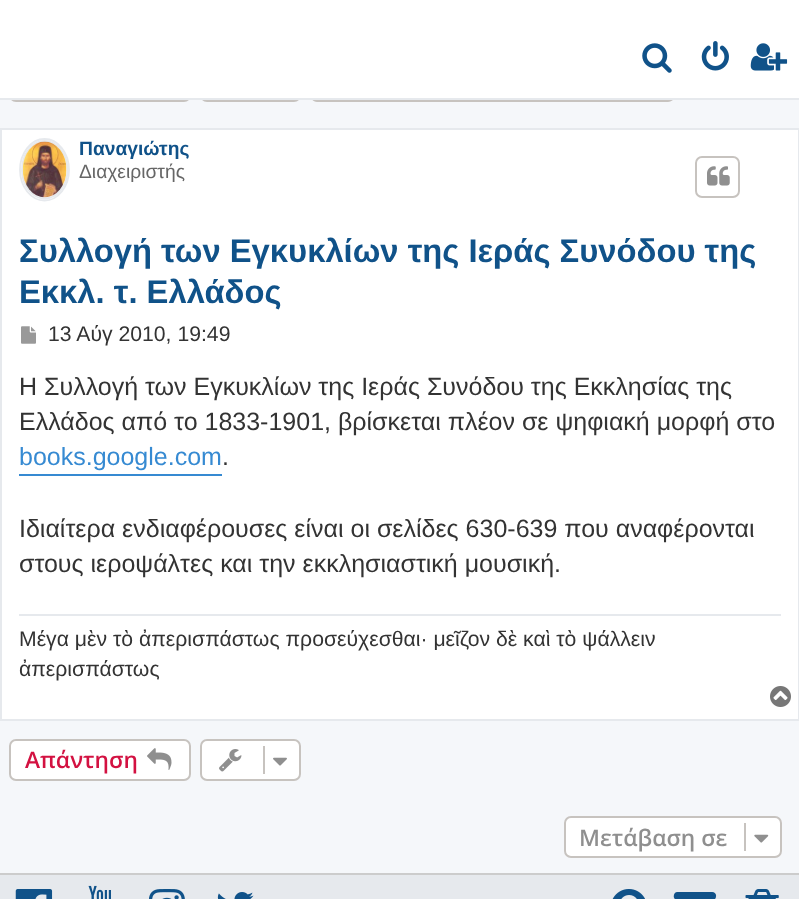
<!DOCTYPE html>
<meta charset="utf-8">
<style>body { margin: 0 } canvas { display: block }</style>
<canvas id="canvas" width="799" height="899"></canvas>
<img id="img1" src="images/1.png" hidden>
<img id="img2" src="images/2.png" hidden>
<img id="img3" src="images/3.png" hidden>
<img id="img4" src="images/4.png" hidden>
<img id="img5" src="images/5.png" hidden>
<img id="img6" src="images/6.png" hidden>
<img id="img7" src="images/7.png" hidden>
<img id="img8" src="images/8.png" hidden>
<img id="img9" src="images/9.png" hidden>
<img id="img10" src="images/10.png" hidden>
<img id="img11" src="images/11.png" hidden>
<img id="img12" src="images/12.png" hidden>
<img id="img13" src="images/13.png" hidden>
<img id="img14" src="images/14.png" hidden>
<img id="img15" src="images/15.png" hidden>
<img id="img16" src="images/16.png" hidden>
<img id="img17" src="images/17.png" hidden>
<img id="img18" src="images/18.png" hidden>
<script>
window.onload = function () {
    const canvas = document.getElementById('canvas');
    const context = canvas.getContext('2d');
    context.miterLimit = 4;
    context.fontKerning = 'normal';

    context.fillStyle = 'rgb(245, 247, 250)';
    context.fillRect(0, 0, 799, 899);
    context.beginPath();
    context.roundRect(10, 61, 180, 40, 6);
    context.strokeStyle = 'rgb(199, 195, 191)';
    context.lineWidth = 2;
    context.stroke();
    context.beginPath();
    context.roundRect(201, 61, 99, 40, 6);
    context.stroke();
    context.fillStyle = 'rgb(199, 195, 191)';
    context.beginPath();
    context.moveTo(317, 60);
    context.lineTo(572, 60);
    context.lineTo(572, 102);
    context.lineTo(317, 102);
    context.bezierCurveTo(313, 102, 310, 98, 310, 94);
    context.lineTo(310, 66);
    context.bezierCurveTo(310, 63, 313, 60, 317, 60);
    context.closePath();
    context.moveTo(317, 61);
    context.lineTo(572, 61);
    context.lineTo(572, 100);
    context.lineTo(317, 100);
    context.bezierCurveTo(314, 100, 312, 97, 312, 94);
    context.lineTo(312, 66);
    context.bezierCurveTo(312, 64, 314, 61, 317, 61);
    context.closePath();
    context.fill('evenodd');
    context.strokeRect(573, 61, 51, 40);
    context.beginPath();
    context.moveTo(625, 60);
    context.lineTo(668, 60);
    context.bezierCurveTo(672, 60, 676, 63, 676, 66);
    context.lineTo(676, 94);
    context.bezierCurveTo(676, 98, 672, 102, 668, 102);
    context.lineTo(625, 102);
    context.closePath();
    context.moveTo(625, 61);
    context.lineTo(668, 61);
    context.bezierCurveTo(671, 61, 674, 64, 674, 66);
    context.lineTo(674, 94);
    context.bezierCurveTo(674, 97, 671, 100, 668, 100);
    context.lineTo(625, 100);
    context.closePath();
    context.fill('evenodd');
    context.fillStyle = 'rgb(255, 255, 255)';
    context.fillRect(0, 0, 799, 98);
    context.fillStyle = 'rgb(230, 233, 237)';
    context.fillRect(0, 98, 799, 2);
    context.drawImage(document.getElementById('img1'), 642, 43, 30, 30);
    context.drawImage(document.getElementById('img2'), 701, 41, 28, 30);
    context.drawImage(document.getElementById('img3'), 750, 43, 38, 28);
    context.fillStyle = 'rgb(255, 255, 255)';
    context.beginPath();
    context.rect(1, 129, 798, 591);
    context.fill();
    context.strokeStyle = 'rgb(230, 233, 237)';
    context.stroke();
    context.beginPath();
    context.moveTo(44.5, 139);
    context.bezierCurveTo(58, 139, 69, 153, 69, 170);
    context.bezierCurveTo(69, 186.5, 58, 200.5, 44.5, 200.5);
    context.bezierCurveTo(31, 200.5, 20, 186.5, 20, 170);
    context.bezierCurveTo(20, 153, 31, 139, 44.5, 139);
    context.closePath();
    context.lineWidth = 1.8;
    context.stroke();
    context.beginPath();
    context.moveTo(44.5, 141);
    context.bezierCurveTo(57, 141, 67.5, 154, 67.5, 170);
    context.bezierCurveTo(67.5, 185.5, 57, 198.5, 44.5, 198.5);
    context.bezierCurveTo(32, 198.5, 22, 185.5, 22, 170);
    context.bezierCurveTo(22, 154, 32, 141, 44.5, 141);
    context.closePath();
    context.stroke();
    context.drawImage(document.getElementById('img4'), 22, 141, 45, 57);
    context.beginPath();
    context.roundRect(696, 157, 43, 40, 6);
    context.strokeStyle = 'rgb(199, 195, 191)';
    context.lineWidth = 2;
    context.stroke();
    context.drawImage(document.getElementById('img5'), 707, 166, 23, 20);
    context.drawImage(document.getElementById('img6'), 21, 326, 15, 18);
    context.fillStyle = 'rgb(54, 138, 210)';
    context.fillRect(19, 474, 203, 2);
    context.fillStyle = 'rgb(230, 233, 237)';
    context.fillRect(19, 614, 762, 2);
    context.drawImage(document.getElementById('img7'), 770, 686, 21, 21);
    context.fillStyle = 'rgb(255, 255, 255)';
    context.beginPath();
    context.roundRect(10, 740, 180, 40, 6);
    context.fill();
    context.stroke();
    context.drawImage(document.getElementById('img8'), 147, 748, 25, 22);
    context.beginPath();
    context.roundRect(201, 740, 99, 40, 6);
    context.fill();
    context.stroke();
    context.drawImage(document.getElementById('img9'), 219, 749, 23, 23);
    context.fillStyle = 'rgb(199, 195, 191)';
    context.fillRect(263, 746, 2, 28);
    context.drawImage(document.getElementById('img10'), 273, 757, 14, 9);
    context.fillStyle = 'rgb(255, 255, 255)';
    context.beginPath();
    context.roundRect(565, 817, 216, 40, 6);
    context.fill();
    context.stroke();
    context.fillStyle = 'rgb(199, 195, 191)';
    context.fillRect(744, 823, 2, 28);
    context.drawImage(document.getElementById('img11'), 754, 834, 15, 9);
    context.fillStyle = 'rgb(230, 233, 237)';
    context.fillRect(0, 875, 799, 24);
    context.fillStyle = 'rgb(204, 204, 204)';
    context.fillRect(0, 873, 799, 2);
    context.drawImage(document.getElementById('img12'), 15, 889, 38, 10);
    context.drawImage(document.getElementById('img13'), 88, 885, 23, 14);
    context.drawImage(document.getElementById('img14'), 149, 889, 36, 10);
    context.drawImage(document.getElementById('img15'), 217, 892, 37, 7);
    context.drawImage(document.getElementById('img16'), 612, 889, 33, 10);
    context.drawImage(document.getElementById('img17'), 673, 892, 44, 7);
    context.drawImage(document.getElementById('img18'), 745, 889, 34, 10);
    context.font = 'bold 19.25px Liberation Sans';
    context.fillStyle = 'rgb(16, 82, 137)';
    context.fillText('Παναγιώτης', 79, 155);
    context.font = '19.25px Liberation Sans';
    context.fillStyle = 'rgb(102, 102, 102)';
    context.fillText('Διαχειριστής', 79, 178);
    context.font = 'bold 32.75px Liberation Sans';
    context.fillStyle = 'rgb(16, 82, 137)';
    context.fillText('Συλλογή των Εγκυκλίων της Ιεράς Συνόδου της', 19, 262);
    context.fillText('Εκκλ. τ. Ελλάδος', 19, 303);
    context.font = '21.2px Liberation Sans';
    context.fillStyle = 'rgb(51, 51, 51)';
    context.fillText('13 Αύγ 2010, 19:49', 48, 341);
    context.font = '25px Liberation Sans';
    context.fillText('Η Συλλογή των Εγκυκλίων της Ιεράς Συνόδου της Εκκλησίας της', 19, 395);
    context.fillText('Ελλάδος από το 1833-1901, βρίσκεται πλέον σε ψηφιακή μορφή στο', 19, 430);
    context.fillStyle = 'rgb(54, 138, 210)';
    context.fillText('books.google.com', 19, 465);
    context.fillStyle = 'rgb(51, 51, 51)';
    context.fillText('.', 222, 465);
    context.fillText('Ιδιαίτερα ενδιαφέρουσες είναι οι σελίδες 630-639 που αναφέρονται', 19, 537);
    context.fillText('στους ιεροψάλτες και την εκκλησιαστική μουσική.', 19, 572);
    context.font = '21.2px Liberation Sans';
    context.fillText('Μέγα μὲν τὸ ἀπερισπάστως προσεύχεσθαι· μεῖζον δὲ καὶ τὸ ψάλλειν', 19, 646);
    context.fillText('ἀπερισπάστως', 19, 676);
    context.font = '600 22.75px Open Sans';
    context.fillStyle = 'rgb(211, 17, 65)';
    context.fillText('Απάντηση', 25, 768);
    context.fillStyle = 'rgb(143, 143, 143)';
    context.fillText('Μετάβαση σε', 579, 846);
};
</script>
